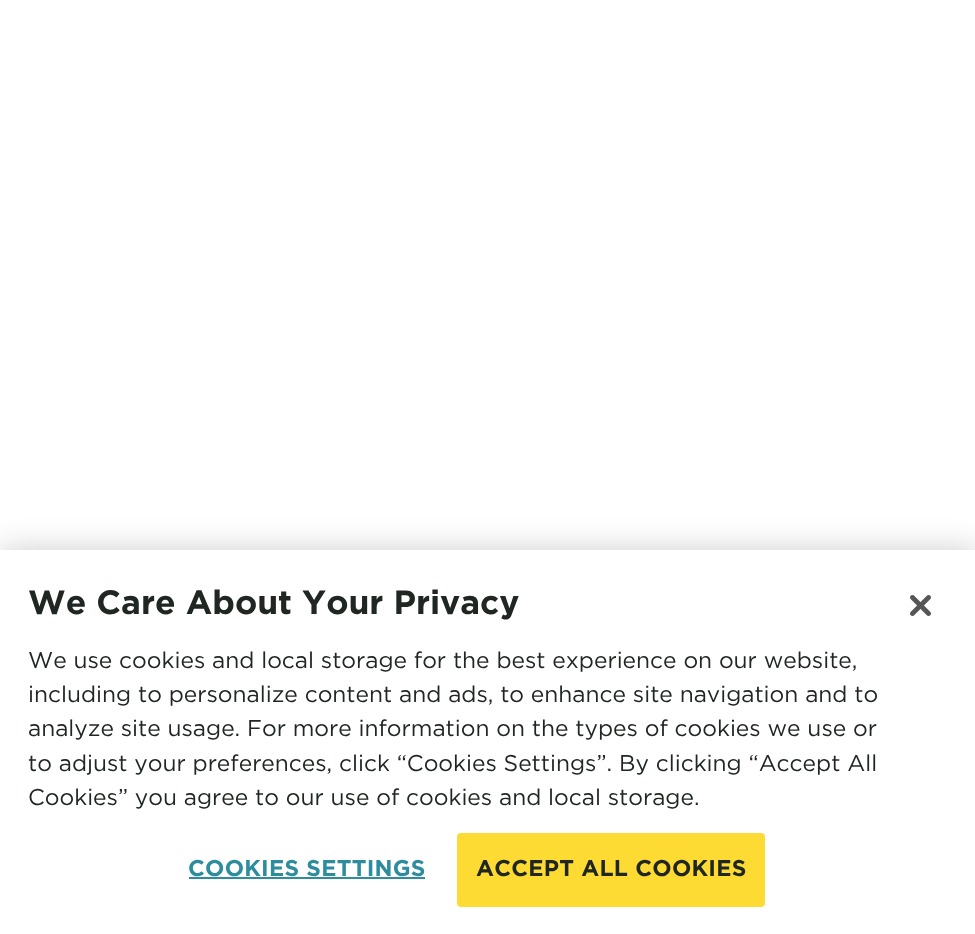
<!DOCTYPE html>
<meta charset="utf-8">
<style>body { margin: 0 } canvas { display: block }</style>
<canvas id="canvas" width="975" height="934"></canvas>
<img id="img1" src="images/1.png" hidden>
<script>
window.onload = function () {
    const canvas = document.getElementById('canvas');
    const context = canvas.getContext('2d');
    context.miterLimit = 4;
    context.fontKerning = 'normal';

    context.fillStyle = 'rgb(255, 255, 255)';
    context.fillRect(0, 0, 975, 934);
    context.fillStyle = 'rgba(0, 0, 0, 0.2)';
    context.filter = 'blur(16px)';
    context.beginPath();
    context.rect(0, 550, 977, 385);
    context.fill();
    context.filter = 'none';
    context.fillStyle = 'rgb(255, 255, 255)';
    context.fillRect(0, 550, 975, 384);
    context.fillStyle = 'rgb(45, 140, 158)';
    context.fillRect(189, 877, 236, 2);
    context.fillStyle = 'rgb(253, 219, 50)';
    context.beginPath();
    context.roundRect(458, 834, 306, 72, 3);
    context.fill();
    context.strokeStyle = 'rgb(253, 219, 50)';
    context.lineWidth = 2;
    context.stroke();
    context.drawImage(document.getElementById('img1'), 910, 595, 21, 21);
    context.font = 'bold 33.6px Gotham';
    context.fillStyle = 'rgb(32, 38, 33)';
    context.fillText('We Care About Your Privacy', 28, 614);
    context.font = '22.75px Gotham';
    context.fillText('We use cookies and local storage for the best experience on our website,', 28, 668);
    context.fillText('including to personalize content and ads, to enhance site navigation and to', 28, 702);
    context.fillText('analyze site usage. For more information on the types of cookies we use or', 28, 736);
    context.fillText('to adjust your preferences, click “Cookies Settings”.', 28, 771);
    context.fillText('By clicking “Accept All', 619, 771);
    context.fillText('Cookies” you agree to our use of cookies and local storage.', 28, 805);
    context.letterSpacing = '0.25px';
    context.font = 'bold 22.75px Gotham';
    context.fillStyle = 'rgb(45, 140, 158)';
    context.fillText('COOKIES SETTINGS', 188, 876);
    context.fillStyle = 'rgb(32, 38, 33)';
    context.fillText('ACCEPT ALL COOKIES', 476, 876);
};
</script>
